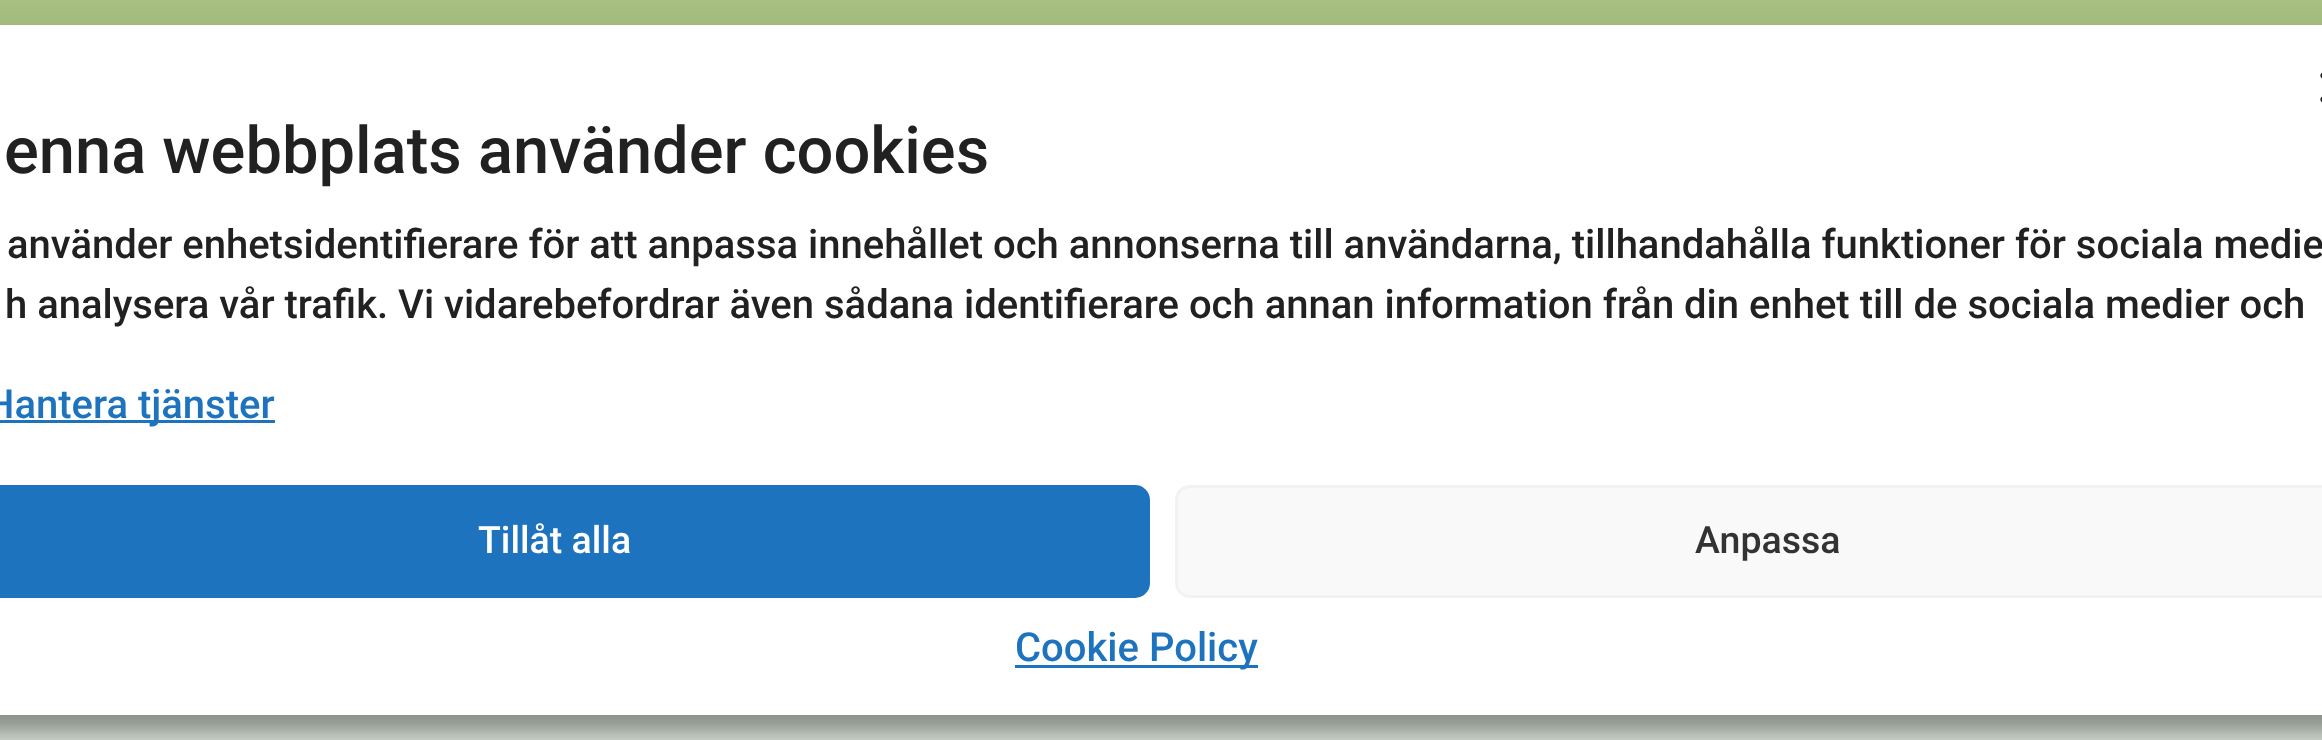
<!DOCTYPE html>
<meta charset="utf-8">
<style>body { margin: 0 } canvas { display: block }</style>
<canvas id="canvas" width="2322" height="740"></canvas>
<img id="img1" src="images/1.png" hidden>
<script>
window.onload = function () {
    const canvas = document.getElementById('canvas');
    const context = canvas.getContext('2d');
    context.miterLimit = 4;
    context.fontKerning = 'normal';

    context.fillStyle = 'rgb(168, 192, 130)';
    context.fillRect(0, 0, 2322, 740);
    context.fillStyle = 'rgb(221, 229, 218)';
    context.fillRect(0, 715, 2322, 25);
    context.fillStyle = 'rgba(0, 0, 0, 0.23)';
    context.filter = 'blur(7.5px)';
    context.beginPath();
    context.roundRect(-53, 40, 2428, 690, 30);
    context.fill();
    context.filter = 'none';
    context.fillStyle = 'rgba(0, 0, 0, 0.19)';
    context.filter = 'blur(25px)';
    context.beginPath();
    context.roundRect(-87, 50, 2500, 690, 30);
    context.fill();
    context.filter = 'none';
    context.fillStyle = 'rgb(255, 255, 255)';
    context.fillRect(0, 25, 2322, 690);
    context.drawImage(document.getElementById('img1'), 2320, 72, 2, 31);
    context.fillStyle = 'rgb(30, 115, 190)';
    context.fillRect(0, 420, 275, 3);
    context.beginPath();
    context.roundRect(-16.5, 486.5, 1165, 110, 13.5);
    context.fill();
    context.strokeStyle = 'rgb(30, 115, 190)';
    context.lineWidth = 3;
    context.stroke();
    context.fillStyle = 'rgb(249, 249, 249)';
    context.beginPath();
    context.roundRect(1176.5, 486.5, 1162, 110, 13.5);
    context.fill();
    context.strokeStyle = 'rgb(242, 242, 242)';
    context.stroke();
    context.fillStyle = 'rgb(30, 115, 190)';
    context.fillRect(1015, 665, 243, 3);
    context.font = '500 65px Roboto';
    context.fillStyle = 'rgb(33, 33, 33)';
    context.fillText('enna webbplats använder cookies', 4, 173);
    context.font = '500 40px Roboto';
    context.fillText('använder enhetsidentifierare för att anpassa innehållet och annonserna till användarna, tillhandahålla funktioner för sociala medie', 7, 258);
    context.fillText('h analysera vår trafik. Vi vidarebefordrar även sådana identifierare och annan information från din enhet till de sociala medier och', 5, 318);
    context.fillStyle = 'rgb(30, 115, 190)';
    context.fillText('Hantera tjänster', -14, 418);
    context.font = '500 37.5px Roboto';
    context.fillStyle = 'rgb(255, 255, 255)';
    context.fillText('Tillåt alla', 478, 553);
    context.fillStyle = 'rgb(51, 51, 51)';
    context.fillText('Anpassa', 1695, 553);
    context.font = '500 40px Roboto';
    context.fillStyle = 'rgb(30, 115, 190)';
    context.fillText('Cookie Policy', 1015, 661);
};
</script>
